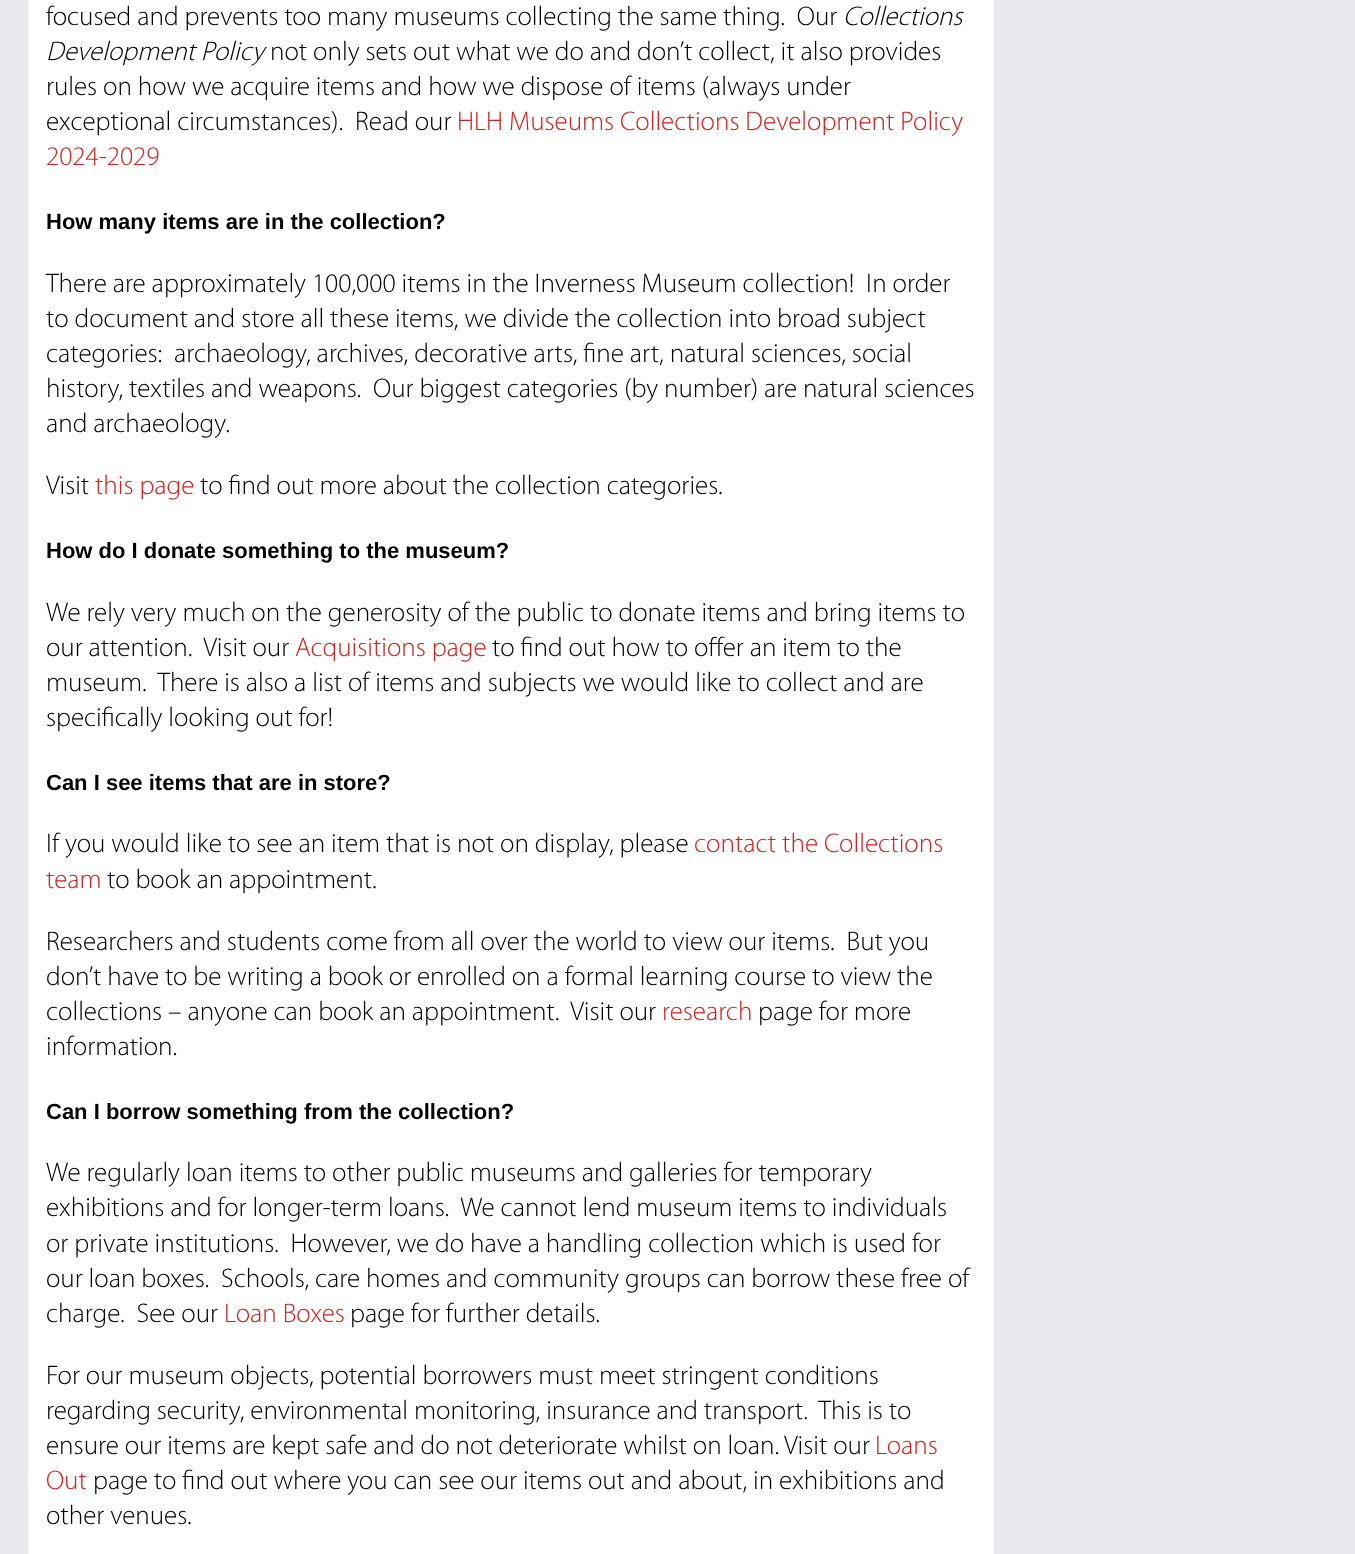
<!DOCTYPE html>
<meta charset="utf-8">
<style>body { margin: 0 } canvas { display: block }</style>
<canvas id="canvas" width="1355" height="1554"></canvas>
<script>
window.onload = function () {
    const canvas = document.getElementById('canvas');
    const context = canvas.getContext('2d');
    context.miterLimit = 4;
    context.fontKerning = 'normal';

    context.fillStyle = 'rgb(234, 233, 238)';
    context.fillRect(0, 0, 1355, 1554);
    context.fillStyle = 'rgb(255, 255, 255)';
    context.fillRect(28, 0, 966, 1554);
    context.font = '300 27px Myriad';
    context.fillStyle = 'rgb(0, 0, 0)';
    context.fillText('focused and prevents too many museums collecting the same thing.  Our', 46, 25);
    context.font = 'italic 300 27px Myriad';
    context.fillText('Collections', 843, 25);
    context.fillText('Development Policy', 46, 60);
    context.font = '300 27px Myriad';
    context.fillText('not only sets out what we do and don’t collect, it also provides', 270, 60);
    context.fillText('rules on how we acquire items and how we dispose of items (always under', 46, 95);
    context.fillText('exceptional circumstances).  Read our', 46, 130);
    context.fillStyle = 'rgb(204, 34, 34)';
    context.fillText('HLH Museums Collections Development Policy', 457, 130);
    context.fillText('2024-2029', 46, 165);
    context.font = 'bold 22px Liberation Sans';
    context.fillStyle = 'rgb(0, 0, 0)';
    context.fillText('How many items are in the collection?', 46, 229);
    context.font = '300 27px Myriad';
    context.fillText('There are approximately 100,000 items in the Inverness Museum collection!  In order', 46, 292);
    context.fillText('to document and store all these items, we divide the collection into broad subject', 46, 327);
    context.fillText('categories:  archaeology, archives, decorative arts, fine art, natural sciences, social', 46, 362);
    context.fillText('history, textiles and weapons.  Our biggest categories (by number) are natural sciences', 46, 397);
    context.fillText('and archaeology.', 46, 432);
    context.fillText('Visit', 46, 494);
    context.fillStyle = 'rgb(204, 34, 34)';
    context.fillText('this page', 95, 494);
    context.fillStyle = 'rgb(0, 0, 0)';
    context.fillText('to find out more about the collection categories.', 200, 494);
    context.font = 'bold 22px Liberation Sans';
    context.fillText('How do I donate something to the museum?', 46, 558);
    context.font = '300 27px Myriad';
    context.fillText('We rely very much on the generosity of the public to donate items and bring items to', 46, 621);
    context.fillText('our attention.  Visit our', 46, 656);
    context.fillStyle = 'rgb(204, 34, 34)';
    context.fillText('Acquisitions page', 295, 656);
    context.fillStyle = 'rgb(0, 0, 0)';
    context.fillText('to find out how to offer an item to the', 492, 656);
    context.fillText('museum.  There is also a list of items and subjects we would like to collect and are', 46, 691);
    context.fillText('specifically looking out for!', 46, 726);
    context.font = 'bold 22px Liberation Sans';
    context.fillText('Can I see items that are in store?', 46, 790);
    context.font = '300 27px Myriad';
    context.fillText('If you would like to see an item that is not on display, please', 46, 852);
    context.fillStyle = 'rgb(204, 34, 34)';
    context.fillText('contact the Collections', 694, 852);
    context.fillText('team', 46, 888);
    context.fillStyle = 'rgb(0, 0, 0)';
    context.fillText('to book an appointment.', 107, 888);
    context.fillText('Researchers and students come from all over the world to view our items.  But you', 46, 950);
    context.fillText('don’t have to be writing a book or enrolled on a formal learning course to view the', 46, 985);
    context.fillText('collections – anyone can book an appointment.  Visit our', 46, 1020);
    context.fillStyle = 'rgb(204, 34, 34)';
    context.fillText('research', 662, 1020);
    context.fillStyle = 'rgb(0, 0, 0)';
    context.fillText('page for more', 758, 1020);
    context.fillText('information.', 46, 1055);
    context.font = 'bold 22px Liberation Sans';
    context.fillText('Can I borrow something from the collection?', 46, 1119);
    context.font = '300 27px Myriad';
    context.fillText('We regularly loan items to other public museums and galleries for temporary', 46, 1181);
    context.fillText('exhibitions and for longer-term loans.  We cannot lend museum items to individuals', 46, 1216);
    context.fillText('or private institutions.  However, we do have a handling collection which is used for', 46, 1252);
    context.fillText('our loan boxes.  Schools, care homes and community groups can borrow these free of', 46, 1287);
    context.fillText('charge.  See our', 46, 1322);
    context.fillStyle = 'rgb(204, 34, 34)';
    context.fillText('Loan Boxes', 224, 1322);
    context.fillStyle = 'rgb(0, 0, 0)';
    context.fillText('page for further details.', 350, 1322);
    context.fillText('For our museum objects, potential borrowers must meet stringent conditions', 46, 1384);
    context.fillText('regarding security, environmental monitoring, insurance and transport.  This is to', 46, 1419);
    context.fillText('ensure our items are kept safe and do not deteriorate whilst on loan. Visit our', 46, 1454);
    context.fillStyle = 'rgb(204, 34, 34)';
    context.fillText('Loans', 875, 1454);
    context.fillText('Out', 46, 1489);
    context.fillStyle = 'rgb(0, 0, 0)';
    context.fillText('page to find out where you can see our items out and about, in exhibitions and', 93, 1489);
    context.fillText('other venues.', 46, 1524);
};
</script>
